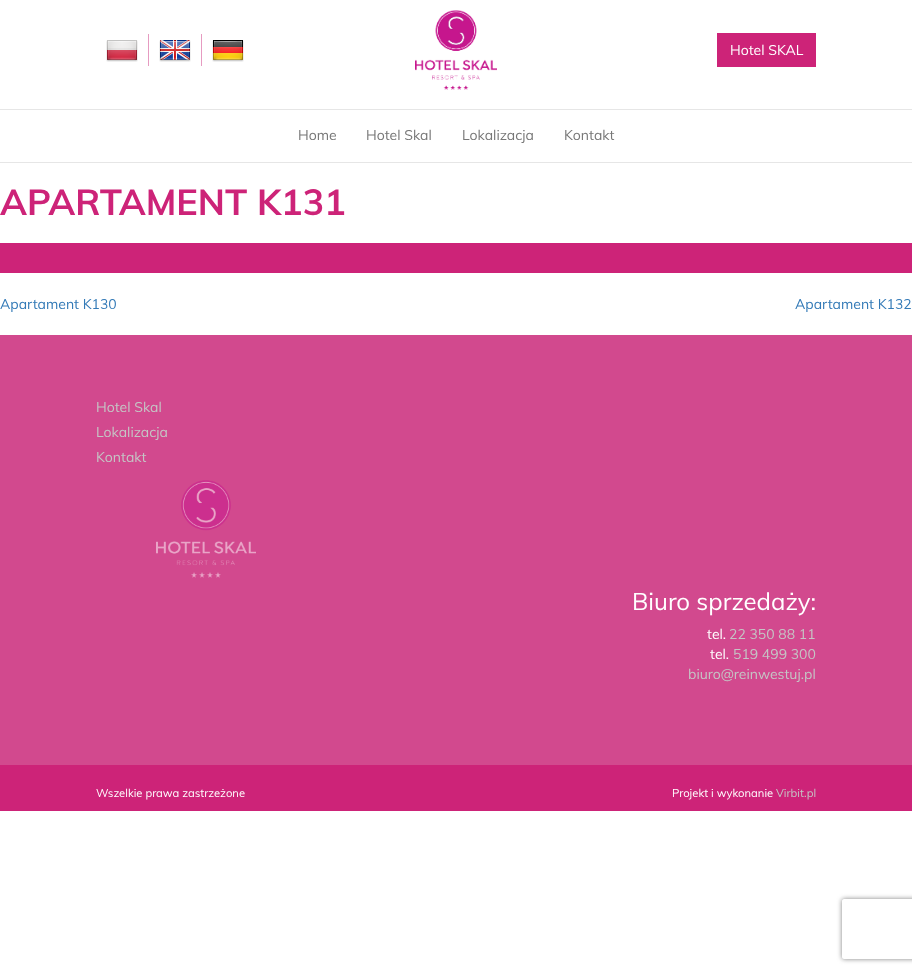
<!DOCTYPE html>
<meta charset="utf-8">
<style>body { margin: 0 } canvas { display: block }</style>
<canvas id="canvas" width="912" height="973"></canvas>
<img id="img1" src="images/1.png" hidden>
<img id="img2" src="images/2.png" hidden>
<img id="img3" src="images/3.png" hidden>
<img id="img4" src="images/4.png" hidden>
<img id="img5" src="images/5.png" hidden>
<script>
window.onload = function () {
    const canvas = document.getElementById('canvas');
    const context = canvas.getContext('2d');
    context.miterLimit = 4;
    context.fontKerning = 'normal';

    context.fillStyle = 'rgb(255, 255, 255)';
    context.fillRect(0, 0, 912, 973);
    context.fillStyle = 'rgb(230, 155, 193)';
    context.fillRect(148, 34, 1, 32);
    context.drawImage(document.getElementById('img1'), 106, 40, 32, 22);
    context.fillRect(201, 34, 1, 32);
    context.drawImage(document.getElementById('img2'), 159, 40, 32, 22);
    context.drawImage(document.getElementById('img3'), 212, 40, 32, 22);
    context.drawImage(document.getElementById('img4'), 415, 10, 82, 80);
    context.fillStyle = 'rgb(205, 35, 120)';
    context.fillRect(717, 33, 99, 34);
    context.strokeStyle = 'rgb(230, 230, 230)';
    context.strokeRect(-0.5, 109.5, 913, 53);
    context.fillRect(0, 243, 912, 30);
    context.fillStyle = 'rgb(210, 73, 142)';
    context.fillRect(0, 335, 912, 430);
    context.drawImage(document.getElementById('img5'), 156, 480, 100, 98);
    context.fillStyle = 'rgb(205, 35, 120)';
    context.fillRect(0, 765, 912, 46);
    context.save();
    context.beginPath();
    context.moveTo(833, 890);
    context.lineTo(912, 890);
    context.lineTo(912, 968);
    context.lineTo(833, 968);
    context.closePath();
    context.moveTo(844, 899);
    context.lineTo(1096, 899);
    context.bezierCurveTo(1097, 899, 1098, 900, 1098, 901);
    context.lineTo(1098, 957);
    context.bezierCurveTo(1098, 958, 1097, 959, 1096, 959);
    context.lineTo(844, 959);
    context.bezierCurveTo(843, 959, 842, 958, 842, 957);
    context.lineTo(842, 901);
    context.bezierCurveTo(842, 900, 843, 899, 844, 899);
    context.closePath();
    context.clip('evenodd');
    context.fillStyle = 'rgb(128, 128, 128)';
    context.filter = 'blur(2.5px)';
    context.beginPath();
    context.roundRect(842, 899, 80, 60, 2);
    context.fill();
    context.filter = 'none';
    context.restore();
    context.font = '14px Muli';
    context.fillStyle = 'rgb(255, 255, 255)';
    context.fillText('Hotel SKAL', 730, 55);
    context.fillStyle = 'rgb(119, 119, 119)';
    context.fillText('Home', 298, 140);
    context.fillText('Hotel Skal', 366, 140);
    context.fillText('Lokalizacja', 462, 140);
    context.fillText('Kontakt', 564, 140);
    context.font = 'bold 36px Muli';
    context.fillStyle = 'rgb(205, 35, 120)';
    context.fillText('APARTAMENT K131', 0, 215);
    context.font = '14px Muli';
    context.fillStyle = 'rgb(51, 122, 183)';
    context.fillText('Apartament K130', 0, 309);
    context.fillText('Apartament K132', 795, 309);
    context.fillStyle = 'rgb(197, 197, 197)';
    context.fillText('Hotel Skal', 96, 412);
    context.fillText('Lokalizacja', 96, 437);
    context.fillText('Kontakt', 96, 462);
    context.font = '24px Muli';
    context.fillStyle = 'rgb(255, 255, 255)';
    context.fillText('Biuro sprzedaży:', 632, 610);
    context.font = '14px Muli';
    context.fillText('tel.', 707, 639);
    context.fillStyle = 'rgb(197, 197, 197)';
    context.fillText('22 350 88 11', 729, 639);
    context.fillStyle = 'rgb(255, 255, 255)';
    context.fillText('tel.', 710, 659);
    context.fillStyle = 'rgb(197, 197, 197)';
    context.fillText('519 499 300', 733, 659);
    context.fillText('biuro@reinwestuj.pl', 688, 679);
    context.font = '11.25px Muli';
    context.fillStyle = 'rgb(255, 255, 255)';
    context.fillText('Wszelkie prawa zastrzeżone', 96, 797);
    context.fillText('Projekt i wykonanie', 672, 797);
    context.fillStyle = 'rgb(197, 197, 197)';
    context.fillText('Virbit.pl', 776, 797);
};
</script>
